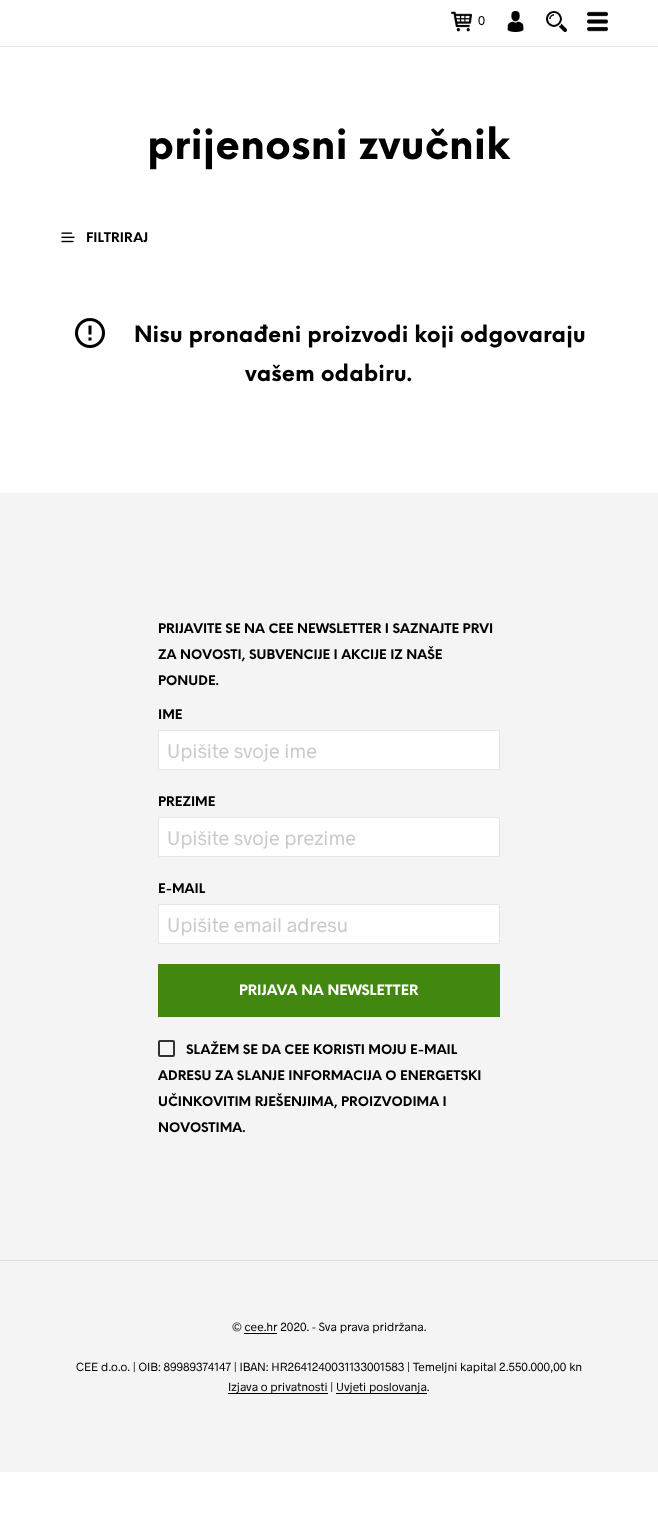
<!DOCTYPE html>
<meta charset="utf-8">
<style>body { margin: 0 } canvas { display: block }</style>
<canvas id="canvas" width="658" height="1531"></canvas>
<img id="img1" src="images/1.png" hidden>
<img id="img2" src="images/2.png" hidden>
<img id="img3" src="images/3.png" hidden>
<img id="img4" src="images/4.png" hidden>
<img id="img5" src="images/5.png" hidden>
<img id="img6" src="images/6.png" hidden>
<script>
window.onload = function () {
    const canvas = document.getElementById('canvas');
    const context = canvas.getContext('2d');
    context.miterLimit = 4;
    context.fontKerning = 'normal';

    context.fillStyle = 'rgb(255, 255, 255)';
    context.fillRect(0, 0, 658, 1531);
    context.fillStyle = 'rgb(230, 230, 230)';
    context.fillRect(0, 46, 658, 1);
    context.drawImage(document.getElementById('img1'), 451, 11, 21, 21);
    context.drawImage(document.getElementById('img2'), 507, 11, 17, 21);
    context.drawImage(document.getElementById('img3'), 546, 11, 21, 21);
    context.drawImage(document.getElementById('img4'), 587, 11, 21, 21);
    context.drawImage(document.getElementById('img5'), 61, 232, 14, 11);
    context.drawImage(document.getElementById('img6'), 75, 318, 30, 30);
    context.fillStyle = 'rgb(244, 244, 244)';
    context.fillRect(0, 493, 658, 979);
    context.fillStyle = 'rgb(221, 221, 221)';
    context.fillRect(0, 1260, 658, 1);
    context.fillStyle = 'rgb(255, 255, 255)';
    context.beginPath();
    context.rect(158.5, 730.5, 341, 39);
    context.fill();
    context.strokeStyle = 'rgb(230, 230, 230)';
    context.stroke();
    context.beginPath();
    context.rect(158.5, 817.5, 341, 39);
    context.fill();
    context.stroke();
    context.beginPath();
    context.rect(158.5, 904.5, 341, 39);
    context.fill();
    context.stroke();
    context.fillStyle = 'rgb(66, 136, 16)';
    context.fillRect(158, 964, 342, 53);
    context.beginPath();
    context.roundRect(159, 1041, 15, 15, 1);
    context.strokeStyle = 'rgb(49, 49, 49)';
    context.lineWidth = 2;
    context.stroke();
    context.fillStyle = 'rgb(0, 0, 0)';
    context.fillRect(244, 1333, 33, 1);
    context.fillRect(228, 1393, 100, 1);
    context.fillRect(336, 1393, 91, 1);
    context.font = '13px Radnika';
    context.fillText('0', 478, 25);
    context.font = 'bold 41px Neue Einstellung';
    context.fillText('prijenosni zvučnik', 147, 159);
    context.font = 'bold 13px Neue Einstellung';
    context.fillText('FILTRIRAJ', 86, 242);
    context.font = 'bold 22px Neue Einstellung';
    context.fillText('Nisu pronađeni proizvodi koji odgovaraju', 134, 342);
    context.fillText('vašem odabiru.', 245, 381);
    context.font = 'bold 13px Neue Einstellung';
    context.fillText('PRIJAVITE SE NA CEE NEWSLETTER I SAZNAJTE PRVI', 158, 633);
    context.fillText('ZA NOVOSTI, SUBVENCIJE I AKCIJE IZ NAŠE', 158, 659);
    context.fillText('PONUDE.', 158, 685);
    context.fillText('IME', 158, 719);
    context.font = '20px Radnika';
    context.fillStyle = 'rgb(202, 202, 202)';
    context.fillText('Upišite svoje ime', 167, 758);
    context.font = 'bold 13px Neue Einstellung';
    context.fillStyle = 'rgb(0, 0, 0)';
    context.fillText('PREZIME', 158, 806);
    context.font = '20px Radnika';
    context.fillStyle = 'rgb(202, 202, 202)';
    context.fillText('Upišite svoje prezime', 167, 845);
    context.font = 'bold 13px Neue Einstellung';
    context.fillStyle = 'rgb(0, 0, 0)';
    context.fillText('E-MAIL', 158, 893);
    context.font = '20px Radnika';
    context.fillStyle = 'rgb(202, 202, 202)';
    context.fillText('Upišite email adresu', 167, 932);
    context.font = 'bold 14px Neue Einstellung';
    context.fillStyle = 'rgb(255, 255, 255)';
    context.fillText('PRIJAVA NA NEWSLETTER', 239, 995);
    context.font = 'bold 13px Neue Einstellung';
    context.fillStyle = 'rgb(0, 0, 0)';
    context.fillText('SLAŽEM SE DA CEE KORISTI MOJU E-MAIL', 186, 1054);
    context.fillText('ADRESU ZA SLANJE INFORMACIJA O ENERGETSKI', 158, 1080);
    context.fillText('UČINKOVITIM RJEŠENJIMA, PROIZVODIMA I', 158, 1106);
    context.fillText('NOVOSTIMA.', 158, 1132);
    context.font = '12px Radnika';
    context.fillText('© cee.hr 2020. - Sva prava pridržana.', 232, 1331);
    context.fillText('CEE d.o.o. | OIB: 89989374147 | IBAN: HR2641240031133001583 | Temeljni kapital 2.550.000,00 kn', 76, 1371);
    context.fillText('Izjava o privatnosti |', 228, 1391);
    context.fillText('Uvjeti poslovanja.', 336, 1391);
};
</script>
